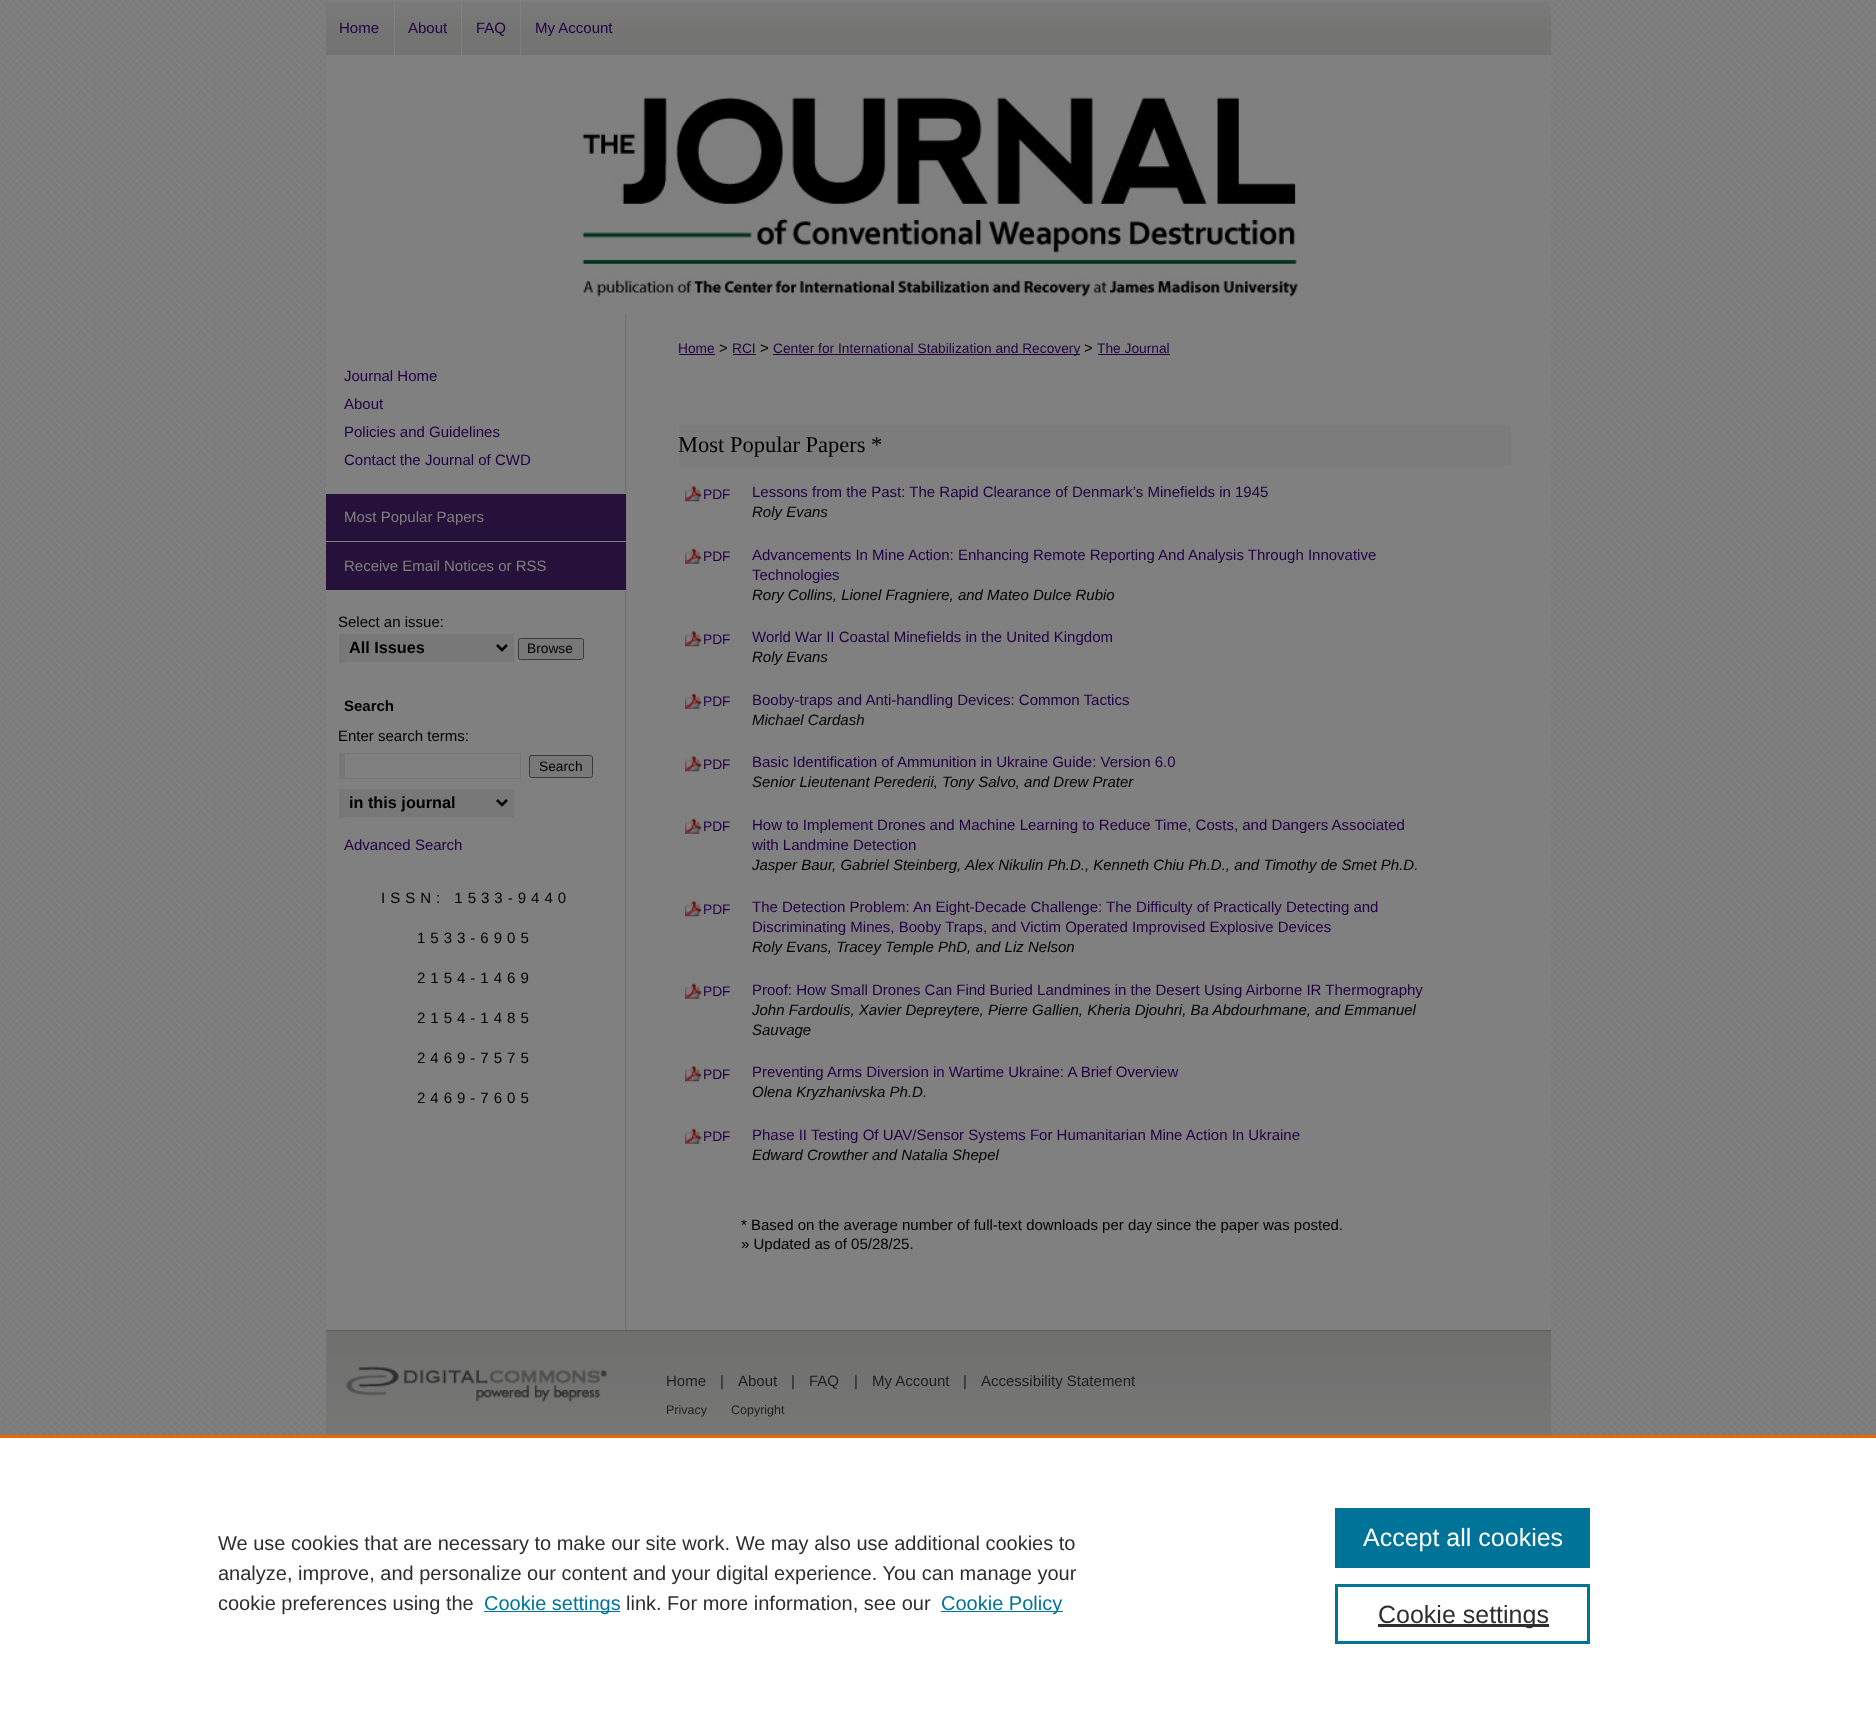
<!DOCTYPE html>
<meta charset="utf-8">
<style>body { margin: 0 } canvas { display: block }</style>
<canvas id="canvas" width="1876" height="1710"></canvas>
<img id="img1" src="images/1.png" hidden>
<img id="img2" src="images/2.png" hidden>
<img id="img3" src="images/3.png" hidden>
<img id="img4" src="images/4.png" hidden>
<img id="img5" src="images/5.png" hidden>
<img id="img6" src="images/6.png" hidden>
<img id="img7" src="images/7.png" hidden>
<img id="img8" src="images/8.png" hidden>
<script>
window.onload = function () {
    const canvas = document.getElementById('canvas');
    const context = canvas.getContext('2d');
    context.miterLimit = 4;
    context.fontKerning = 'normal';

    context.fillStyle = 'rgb(255, 255, 255)';
    context.fillRect(0, 0, 1876, 1710);
    context.drawImage(document.getElementById('img1'), 0, 0, 1876, 1435);
    context.fillStyle = 'rgb(128, 128, 128)';
    context.fillRect(326, 55, 1225, 1275);
    context.fillStyle = 'rgb(115, 115, 114)';
    context.fillRect(326, 0, 1225, 55);
    context.drawImage(document.getElementById('img2'), 326, 0, 1226, 53);
    context.fillStyle = 'rgb(128, 128, 128)';
    context.fillRect(394, 0, 1, 55);
    context.fillRect(461, 0, 1, 55);
    context.fillRect(520, 0, 1, 55);
    context.drawImage(document.getElementById('img3'), 582, 97, 716, 200);
    context.drawImage(document.getElementById('img4'), 625, 315, 2, 1015);
    context.fillRect(625, 493, 1, 1);
    context.fillStyle = 'rgb(37, 17, 57)';
    context.fillRect(326, 494, 300, 96);
    context.fillStyle = 'rgb(128, 128, 128)';
    context.fillRect(326, 541, 300, 1);
    context.fillRect(625, 590, 1, 1);
    context.fillStyle = 'rgb(120, 120, 120)';
    context.fillRect(345, 635, 168, 26);
    context.fillStyle = 'rgb(119, 119, 119)';
    context.fillRect(339, 634, 175, 1);
    context.fillRect(513, 634, 1, 29);
    context.fillRect(339, 661, 175, 1);
    context.fillRect(339, 634, 6, 29);
    context.beginPath();
    context.moveTo(497, 645);
    context.lineTo(502, 650);
    context.lineTo(507, 645);
    context.strokeStyle = 'rgb(0, 0, 0)';
    context.lineWidth = 2.5;
    context.stroke();
    context.fillStyle = 'rgb(120, 120, 120)';
    context.beginPath();
    context.roundRect(518.5, 638.5, 65, 21, 2);
    context.fill();
    context.strokeStyle = 'rgb(59, 59, 59)';
    context.lineWidth = 1;
    context.stroke();
    context.fillStyle = 'rgb(119, 119, 119)';
    context.fillRect(339, 753, 182, 1);
    context.fillRect(520, 753, 1, 26);
    context.fillRect(339, 778, 182, 1);
    context.fillRect(339, 753, 6, 26);
    context.fillStyle = 'rgb(120, 120, 120)';
    context.beginPath();
    context.roundRect(529.5, 755.5, 63, 22, 2);
    context.fill();
    context.stroke();
    context.fillRect(345, 790, 168, 26);
    context.fillStyle = 'rgb(119, 119, 119)';
    context.fillRect(339, 789, 175, 1);
    context.fillRect(513, 789, 1, 29);
    context.fillRect(339, 816, 175, 1);
    context.fillRect(339, 789, 6, 29);
    context.beginPath();
    context.moveTo(497, 800);
    context.lineTo(502, 805);
    context.lineTo(507, 800);
    context.strokeStyle = 'rgb(0, 0, 0)';
    context.lineWidth = 2.5;
    context.stroke();
    context.fillStyle = 'rgb(34, 0, 68)';
    context.fillRect(679, 354, 36, 1);
    context.fillRect(733, 354, 23, 1);
    context.fillRect(773, 354, 307, 1);
    context.fillRect(1098, 354, 72, 1);
    context.fillStyle = 'rgb(124, 124, 124)';
    context.fillRect(679, 425, 832, 41);
    context.drawImage(document.getElementById('img5'), 685, 486, 17, 16);
    context.drawImage(document.getElementById('img6'), 685, 548, 17, 16);
    context.drawImage(document.getElementById('img5'), 685, 631, 17, 16);
    context.drawImage(document.getElementById('img6'), 685, 693, 17, 16);
    context.drawImage(document.getElementById('img5'), 685, 756, 17, 16);
    context.drawImage(document.getElementById('img6'), 685, 818, 17, 16);
    context.drawImage(document.getElementById('img5'), 685, 901, 17, 16);
    context.drawImage(document.getElementById('img6'), 685, 983, 17, 16);
    context.drawImage(document.getElementById('img5'), 685, 1066, 17, 16);
    context.drawImage(document.getElementById('img6'), 685, 1128, 17, 16);
    context.fillStyle = 'rgb(119, 119, 119)';
    context.fillRect(326, 1330, 1225, 105);
    context.drawImage(document.getElementById('img7'), 326, 1330, 1226, 102);
    context.drawImage(document.getElementById('img8'), 327, 1330, 280, 72);
    context.fillStyle = 'rgb(235, 101, 0)';
    context.fillRect(0, 1435, 1876, 3);
    context.fillStyle = 'rgb(0, 115, 152)';
    context.fillRect(484, 1611, 136, 1);
    context.fillRect(941, 1611, 122, 1);
    context.fillRect(1335, 1508, 255, 60);
    context.strokeStyle = 'rgb(0, 115, 152)';
    context.lineWidth = 3;
    context.strokeRect(1336.5, 1585.5, 252, 57);
    context.fillStyle = 'rgb(46, 46, 46)';
    context.fillRect(1378, 1624, 171, 3);
    context.font = '15px Liberation Sans';
    context.fillStyle = 'rgb(34, 0, 68)';
    context.fillText('Home', 339, 33);
    context.fillText('About', 408, 33);
    context.fillText('FAQ', 476, 33);
    context.fillText('My Account', 535, 33);
    context.fillText('Journal Home', 344, 381);
    context.fillText('About', 344, 409);
    context.fillText('Policies and Guidelines', 344, 437);
    context.fillText('Contact the Journal of CWD', 344, 465);
    context.fillStyle = 'rgb(128, 128, 128)';
    context.fillText('Most Popular Papers', 344, 522);
    context.fillText('Receive Email Notices or RSS', 344, 571);
    context.fillStyle = 'rgb(0, 0, 0)';
    context.fillText('Select an issue:', 338, 627);
    context.font = 'bold 16.25px Liberation Sans';
    context.fillText('All Issues', 349, 653);
    context.font = '13.75px Liberation Sans';
    context.fillText('Browse', 527, 653);
    context.font = 'bold 15px Liberation Sans';
    context.fillText('Search', 344, 711);
    context.font = '15px Liberation Sans';
    context.fillText('Enter search terms:', 338, 741);
    context.font = '13.75px Liberation Sans';
    context.fillText('Search', 539, 771);
    context.font = 'bold 16.25px Liberation Sans';
    context.fillText('in this journal', 349, 808);
    context.font = '15px Liberation Sans';
    context.fillStyle = 'rgb(34, 0, 68)';
    context.fillText('Advanced Search', 344, 850);
    context.letterSpacing = '5px';
    context.fillStyle = 'rgb(0, 0, 0)';
    context.fillText('ISSN: 1533-9440', 381, 903);
    context.fillText('1533-6905', 417, 943);
    context.fillText('2154-1469', 417, 983);
    context.fillText('2154-1485', 417, 1023);
    context.fillText('2469-7575', 417, 1063);
    context.fillText('2469-7605', 417, 1103);
    context.letterSpacing = '0px';
    context.font = '13.75px Liberation Sans';
    context.fillStyle = 'rgb(34, 0, 68)';
    context.fillText('Home', 678, 353);
    context.font = '15px Liberation Sans';
    context.fillStyle = 'rgb(0, 0, 0)';
    context.fillText('>', 719, 353);
    context.font = '13.75px Liberation Sans';
    context.fillStyle = 'rgb(34, 0, 68)';
    context.fillText('RCI', 732, 353);
    context.font = '15px Liberation Sans';
    context.fillStyle = 'rgb(0, 0, 0)';
    context.fillText('>', 760, 353);
    context.font = '13.75px Liberation Sans';
    context.fillStyle = 'rgb(34, 0, 68)';
    context.fillText('Center for International Stabilization and Recovery', 773, 353);
    context.font = '15px Liberation Sans';
    context.fillStyle = 'rgb(0, 0, 0)';
    context.fillText('>', 1084, 353);
    context.font = '13.75px Liberation Sans';
    context.fillStyle = 'rgb(34, 0, 68)';
    context.fillText('The Journal', 1097, 353);
    context.font = '22.5px Liberation Serif';
    context.fillStyle = 'rgb(0, 0, 0)';
    context.fillText('Most Popular Papers *', 678, 452);
    context.font = '13.75px Liberation Sans';
    context.fillStyle = 'rgb(34, 0, 68)';
    context.fillText('PDF', 703, 499);
    context.font = '15px Liberation Sans';
    context.fillText('Lessons from the Past: The Rapid Clearance of Denmark’s Minefields in 1945', 752, 497);
    context.font = 'italic 15px Liberation Sans';
    context.fillStyle = 'rgb(0, 0, 0)';
    context.fillText('Roly Evans', 752, 517);
    context.font = '13.75px Liberation Sans';
    context.fillStyle = 'rgb(34, 0, 68)';
    context.fillText('PDF', 703, 561);
    context.font = '15px Liberation Sans';
    context.fillText('Advancements In Mine Action: Enhancing Remote Reporting And Analysis Through Innovative', 752, 560);
    context.fillText('Technologies', 752, 580);
    context.font = 'italic 15px Liberation Sans';
    context.fillStyle = 'rgb(0, 0, 0)';
    context.fillText('Rory Collins, Lionel Fragniere, and Mateo Dulce Rubio', 752, 600);
    context.font = '13.75px Liberation Sans';
    context.fillStyle = 'rgb(34, 0, 68)';
    context.fillText('PDF', 703, 644);
    context.font = '15px Liberation Sans';
    context.fillText('World War II Coastal Minefields in the United Kingdom', 752, 642);
    context.font = 'italic 15px Liberation Sans';
    context.fillStyle = 'rgb(0, 0, 0)';
    context.fillText('Roly Evans', 752, 662);
    context.font = '13.75px Liberation Sans';
    context.fillStyle = 'rgb(34, 0, 68)';
    context.fillText('PDF', 703, 706);
    context.font = '15px Liberation Sans';
    context.fillText('Booby-traps and Anti-handling Devices: Common Tactics', 752, 705);
    context.font = 'italic 15px Liberation Sans';
    context.fillStyle = 'rgb(0, 0, 0)';
    context.fillText('Michael Cardash', 752, 725);
    context.font = '13.75px Liberation Sans';
    context.fillStyle = 'rgb(34, 0, 68)';
    context.fillText('PDF', 703, 769);
    context.font = '15px Liberation Sans';
    context.fillText('Basic Identification of Ammunition in Ukraine Guide: Version 6.0', 752, 767);
    context.font = 'italic 15px Liberation Sans';
    context.fillStyle = 'rgb(0, 0, 0)';
    context.fillText('Senior Lieutenant Perederii, Tony Salvo, and Drew Prater', 752, 787);
    context.font = '13.75px Liberation Sans';
    context.fillStyle = 'rgb(34, 0, 68)';
    context.fillText('PDF', 703, 831);
    context.font = '15px Liberation Sans';
    context.fillText('How to Implement Drones and Machine Learning to Reduce Time, Costs, and Dangers Associated', 752, 830);
    context.fillText('with Landmine Detection', 752, 850);
    context.font = 'italic 15px Liberation Sans';
    context.fillStyle = 'rgb(0, 0, 0)';
    context.fillText('Jasper Baur, Gabriel Steinberg, Alex Nikulin Ph.D., Kenneth Chiu Ph.D., and Timothy de Smet Ph.D.', 752, 870);
    context.font = '13.75px Liberation Sans';
    context.fillStyle = 'rgb(34, 0, 68)';
    context.fillText('PDF', 703, 914);
    context.font = '15px Liberation Sans';
    context.fillText('The Detection Problem: An Eight-Decade Challenge: The Difficulty of Practically Detecting and', 752, 912);
    context.fillText('Discriminating Mines, Booby Traps, and Victim Operated Improvised Explosive Devices', 752, 932);
    context.font = 'italic 15px Liberation Sans';
    context.fillStyle = 'rgb(0, 0, 0)';
    context.fillText('Roly Evans, Tracey Temple PhD, and Liz Nelson', 752, 952);
    context.font = '13.75px Liberation Sans';
    context.fillStyle = 'rgb(34, 0, 68)';
    context.fillText('PDF', 703, 996);
    context.font = '15px Liberation Sans';
    context.fillText('Proof: How Small Drones Can Find Buried Landmines in the Desert Using Airborne IR Thermography', 752, 995);
    context.font = 'italic 15px Liberation Sans';
    context.fillStyle = 'rgb(0, 0, 0)';
    context.fillText('John Fardoulis, Xavier Depreytere, Pierre Gallien, Kheria Djouhri, Ba Abdourhmane, and Emmanuel', 752, 1015);
    context.fillText('Sauvage', 752, 1035);
    context.font = '13.75px Liberation Sans';
    context.fillStyle = 'rgb(34, 0, 68)';
    context.fillText('PDF', 703, 1079);
    context.font = '15px Liberation Sans';
    context.fillText('Preventing Arms Diversion in Wartime Ukraine: A Brief Overview', 752, 1077);
    context.font = 'italic 15px Liberation Sans';
    context.fillStyle = 'rgb(0, 0, 0)';
    context.fillText('Olena Kryzhanivska Ph.D.', 752, 1097);
    context.font = '13.75px Liberation Sans';
    context.fillStyle = 'rgb(34, 0, 68)';
    context.fillText('PDF', 703, 1141);
    context.font = '15px Liberation Sans';
    context.fillText('Phase II Testing Of UAV/Sensor Systems For Humanitarian Mine Action In Ukraine', 752, 1140);
    context.font = 'italic 15px Liberation Sans';
    context.fillStyle = 'rgb(0, 0, 0)';
    context.fillText('Edward Crowther and Natalia Shepel', 752, 1160);
    context.font = '15px Liberation Sans';
    context.fillText('* Based on the average number of full-text downloads per day since the paper was posted.', 741, 1230);
    context.fillText('» Updated as of 05/28/25.', 741, 1249);
    context.fillStyle = 'rgb(31, 31, 31)';
    context.fillText('Home', 666, 1386);
    context.fillText('|', 720, 1386);
    context.fillText('About', 738, 1386);
    context.fillText('|', 791, 1386);
    context.fillText('FAQ', 809, 1386);
    context.fillText('|', 854, 1386);
    context.fillText('My Account', 872, 1386);
    context.fillText('|', 963, 1386);
    context.fillText('Accessibility Statement', 981, 1386);
    context.font = '12.5px Liberation Sans';
    context.fillText('Privacy', 666, 1414);
    context.fillText('Copyright', 731, 1414);
    context.font = '20px Liberation Sans';
    context.fillStyle = 'rgb(46, 46, 46)';
    context.fillText('We use cookies that are necessary to make our site work. We may also use additional cookies to', 218, 1550);
    context.fillText('analyze, improve, and personalize our content and your digital experience. You can manage your', 218, 1580);
    context.fillText('cookie preferences using the', 218, 1610);
    context.fillStyle = 'rgb(0, 115, 152)';
    context.fillText('Cookie settings', 484, 1610);
    context.fillStyle = 'rgb(46, 46, 46)';
    context.fillText('link. For more information, see our', 626, 1610);
    context.fillStyle = 'rgb(0, 115, 152)';
    context.fillText('Cookie Policy', 941, 1610);
    context.font = '25px Liberation Sans';
    context.fillStyle = 'rgb(255, 255, 255)';
    context.fillText('Accept all cookies', 1363, 1546);
    context.fillStyle = 'rgb(46, 46, 46)';
    context.fillText('Cookie settings', 1378, 1623);
};
</script>
